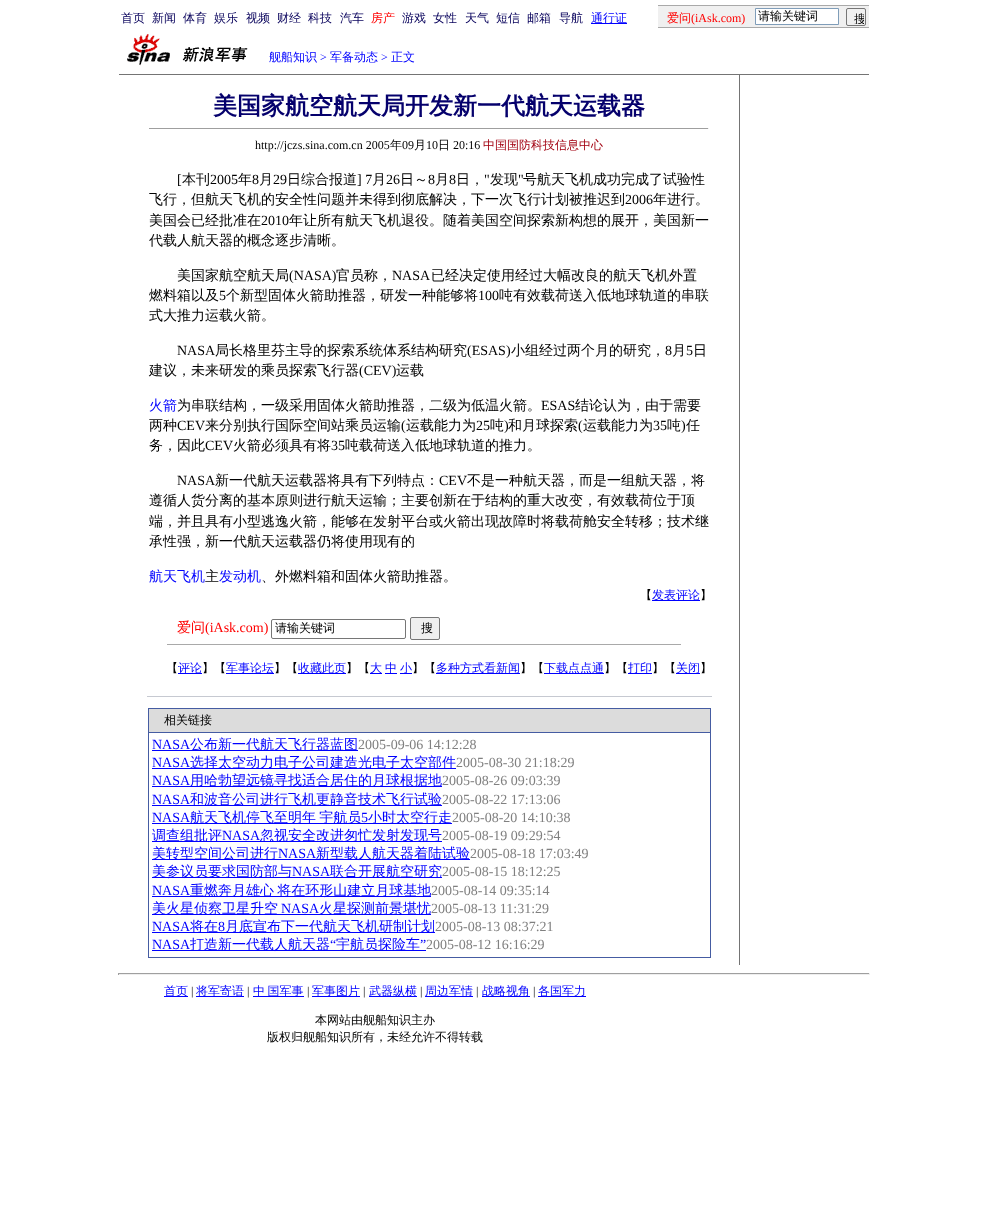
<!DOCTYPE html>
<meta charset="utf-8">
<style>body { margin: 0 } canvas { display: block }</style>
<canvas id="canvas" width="988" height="1219"></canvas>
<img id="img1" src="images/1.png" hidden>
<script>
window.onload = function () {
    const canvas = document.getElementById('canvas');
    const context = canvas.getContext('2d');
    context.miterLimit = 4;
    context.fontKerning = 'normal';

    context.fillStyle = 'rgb(255, 255, 255)';
    context.fillRect(0, 0, 988, 1219);
    context.fillStyle = 'rgb(0, 0, 255)';
    context.fillRect(591, 23, 36, 1);
    context.fillStyle = 'rgb(169, 169, 169)';
    context.fillRect(658, 5, 211, 1);
    context.fillStyle = 'rgb(240, 240, 240)';
    context.fillRect(658, 6, 211, 21);
    context.fillStyle = 'rgb(255, 255, 255)';
    context.beginPath();
    context.rect(755.5, 8.5, 83, 16);
    context.fill();
    context.strokeStyle = 'rgb(127, 157, 185)';
    context.stroke();
    context.beginPath();
    context.roundRect(846.5, 8.5, 19, 17, 1.5);
    context.strokeStyle = 'rgb(118, 118, 118)';
    context.stroke();
    context.fillStyle = 'rgb(169, 169, 169)';
    context.fillRect(658, 27, 211, 1);
    context.drawImage(document.getElementById('img1'), 127, 34, 121, 32);
    context.fillStyle = 'rgb(116, 116, 116)';
    context.fillRect(119, 74, 750, 1);
    context.fillStyle = 'rgb(159, 159, 159)';
    context.fillRect(149, 128, 560, 1);
    context.fillStyle = 'rgb(238, 238, 238)';
    context.fillRect(708, 128, 1, 1);
    context.fillStyle = 'rgb(0, 0, 255)';
    context.fillRect(652, 600, 48, 1);
    context.fillStyle = 'rgb(169, 169, 169)';
    context.fillRect(167, 644, 514, 1);
    context.beginPath();
    context.roundRect(271.5, 619.5, 134, 19, 1.5);
    context.stroke();
    context.fillStyle = 'rgb(239, 239, 239)';
    context.beginPath();
    context.roundRect(410.5, 617.5, 29, 22, 1.5);
    context.fill();
    context.stroke();
    context.fillStyle = 'rgb(0, 0, 255)';
    context.fillRect(178, 673, 24, 1);
    context.fillRect(226, 673, 48, 1);
    context.fillRect(298, 673, 48, 1);
    context.fillRect(370, 673, 12, 1);
    context.fillRect(385, 673, 12, 1);
    context.fillRect(400, 673, 12, 1);
    context.fillRect(436, 673, 84, 1);
    context.fillRect(544, 673, 60, 1);
    context.fillRect(628, 673, 24, 1);
    context.fillRect(676, 673, 24, 1);
    context.fillStyle = 'rgb(198, 201, 209)';
    context.fillRect(147, 696, 565, 1);
    context.fillStyle = 'rgb(69, 92, 162)';
    context.fillRect(148, 708, 563, 250);
    context.fillStyle = 'rgb(220, 220, 220)';
    context.fillRect(149, 709, 561, 23);
    context.fillStyle = 'rgb(255, 255, 255)';
    context.fillRect(149, 733, 561, 224);
    context.fillStyle = 'rgb(0, 0, 255)';
    context.fillRect(152, 750, 206, 1);
    context.fillRect(152, 768, 304, 1);
    context.fillRect(152, 786, 290, 1);
    context.fillRect(152, 805, 290, 1);
    context.fillRect(152, 823, 300, 1);
    context.fillRect(152, 841, 290, 1);
    context.fillRect(152, 859, 318, 1);
    context.fillRect(152, 877, 290, 1);
    context.fillRect(152, 896, 279, 1);
    context.fillRect(152, 914, 279, 1);
    context.fillRect(152, 932, 283, 1);
    context.fillRect(152, 950, 274, 1);
    context.fillStyle = 'rgb(116, 116, 116)';
    context.fillRect(739, 75, 1, 890);
    context.fillStyle = 'rgb(159, 159, 159)';
    context.fillRect(118, 973, 752, 1);
    context.fillStyle = 'rgb(238, 238, 238)';
    context.fillRect(869, 973, 1, 2);
    context.fillRect(118, 974, 752, 1);
    context.fillStyle = 'rgb(159, 159, 159)';
    context.fillRect(118, 973, 1, 2);
    context.fillStyle = 'rgb(0, 0, 255)';
    context.fillRect(164, 996, 24, 1);
    context.fillRect(196, 996, 48, 1);
    context.fillRect(253, 996, 51, 1);
    context.fillRect(312, 996, 48, 1);
    context.fillRect(369, 996, 48, 1);
    context.fillRect(425, 996, 48, 1);
    context.fillRect(482, 996, 48, 1);
    context.fillRect(538, 996, 48, 1);
    context.font = '500 12px WenQuanYi Zen Hei';
    context.fillStyle = 'rgb(7, 1, 91)';
    context.fillText('首页', 121, 22);
    context.fillText('新闻', 152, 22);
    context.fillText('体育', 183, 22);
    context.fillText('娱乐', 214, 22);
    context.fillText('视频', 246, 22);
    context.fillText('财经', 277, 22);
    context.fillText('科技', 308, 22);
    context.fillText('汽车', 340, 22);
    context.fillStyle = 'rgb(255, 0, 0)';
    context.fillText('房产', 371, 22);
    context.fillStyle = 'rgb(7, 1, 91)';
    context.fillText('游戏', 402, 22);
    context.fillText('女性', 433, 22);
    context.fillText('天气', 465, 22);
    context.fillText('短信', 496, 22);
    context.fillText('邮箱', 527, 22);
    context.fillText('导航', 559, 22);
    context.fillStyle = 'rgb(0, 0, 255)';
    context.fillText('通行证', 591, 22);
    context.fillStyle = 'rgb(255, 0, 0)';
    context.fillText('爱问', 667, 22);
    context.font = '12px Liberation Serif';
    context.fillText('(iAsk.com)', 691, 22);
    context.font = '500 12px WenQuanYi Zen Hei';
    context.fillStyle = 'rgb(0, 0, 0)';
    context.fillText('请输关键词', 758, 20);
    context.save();
    context.beginPath();
    context.rect(848, 10, 16, 14);
    context.clip();
    context.fillText('搜', 854, 23);
    context.restore();
    context.fillStyle = 'rgb(0, 0, 255)';
    context.fillText('舰船知识', 269, 61);
    context.font = '12px Liberation Serif';
    context.fillText('>', 320, 61);
    context.font = '500 12px WenQuanYi Zen Hei';
    context.fillText('军备动态', 330, 61);
    context.font = '12px Liberation Serif';
    context.fillText('>', 381, 61);
    context.font = '500 12px WenQuanYi Zen Hei';
    context.fillText('正文', 391, 61);
    context.font = 'bold 24px WenQuanYi Zen Hei';
    context.fillStyle = 'rgb(5, 0, 108)';
    context.fillText('美国家航空航天局开发新一代航天运载器', 213, 114);
    context.font = '12px Liberation Serif';
    context.fillStyle = 'rgb(0, 0, 0)';
    context.fillText('http://jczs.sina.com.cn 2005', 255, 149);
    context.font = '500 12px WenQuanYi Zen Hei';
    context.fillText('年', 390, 149);
    context.font = '12px Liberation Serif';
    context.fillText('09', 402, 149);
    context.font = '500 12px WenQuanYi Zen Hei';
    context.fillText('月', 414, 149);
    context.font = '12px Liberation Serif';
    context.fillText('10', 426, 149);
    context.font = '500 12px WenQuanYi Zen Hei';
    context.fillText('日', 438, 149);
    context.font = '12px Liberation Serif';
    context.fillText('20:16', 453, 149);
    context.font = '500 12px WenQuanYi Zen Hei';
    context.fillStyle = 'rgb(162, 0, 16)';
    context.fillText('中国国防科技信息中心', 483, 149);
    context.font = '14px Liberation Serif';
    context.fillStyle = 'rgb(0, 0, 0)';
    context.fillText('[', 177, 184);
    context.font = '500 14px WenQuanYi Zen Hei';
    context.fillText('本刊', 182, 184);
    context.font = '14px Liberation Serif';
    context.fillText('2005', 210, 184);
    context.font = '500 14px WenQuanYi Zen Hei';
    context.fillText('年', 238, 184);
    context.font = '14px Liberation Serif';
    context.fillText('8', 252, 184);
    context.font = '500 14px WenQuanYi Zen Hei';
    context.fillText('月', 259, 184);
    context.font = '14px Liberation Serif';
    context.fillText('29', 273, 184);
    context.font = '500 14px WenQuanYi Zen Hei';
    context.fillText('日综合报道', 287, 184);
    context.font = '14px Liberation Serif';
    context.fillText('] 7', 357, 184);
    context.font = '500 14px WenQuanYi Zen Hei';
    context.fillText('月', 372, 184);
    context.font = '14px Liberation Serif';
    context.fillText('26', 386, 184);
    context.font = '500 14px WenQuanYi Zen Hei';
    context.fillText('日～', 400, 184);
    context.font = '14px Liberation Serif';
    context.fillText('8', 428, 184);
    context.font = '500 14px WenQuanYi Zen Hei';
    context.fillText('月', 435, 184);
    context.font = '14px Liberation Serif';
    context.fillText('8', 449, 184);
    context.font = '500 14px WenQuanYi Zen Hei';
    context.fillText('日，', 456, 184);
    context.font = '14px Liberation Serif';
    context.fillText('"', 484, 184);
    context.font = '500 14px WenQuanYi Zen Hei';
    context.fillText('发现', 490, 184);
    context.font = '14px Liberation Serif';
    context.fillText('"', 518, 184);
    context.font = '500 14px WenQuanYi Zen Hei';
    context.fillText('号航天飞机成功完成了试验性', 523, 184);
    context.fillText('飞行，但航天飞机的安全性问题并未得到彻底解决，下一次飞行计划被推迟到', 149, 204);
    context.font = '14px Liberation Serif';
    context.fillText('2006', 625, 204);
    context.font = '500 14px WenQuanYi Zen Hei';
    context.fillText('年进行。', 653, 204);
    context.fillText('美国会已经批准在', 149, 225);
    context.font = '14px Liberation Serif';
    context.fillText('2010', 261, 225);
    context.font = '500 14px WenQuanYi Zen Hei';
    context.fillText('年让所有航天飞机退役。随着美国空间探索新构想的展开，美国新一', 289, 225);
    context.fillText('代载人航天器的概念逐步清晰。', 149, 245);
    context.fillText('美国家航空航天局', 177, 280);
    context.font = '14px Liberation Serif';
    context.fillText('(NASA)', 289, 280);
    context.font = '500 14px WenQuanYi Zen Hei';
    context.fillText('官员称，', 336, 280);
    context.font = '14px Liberation Serif';
    context.fillText('NASA', 392, 280);
    context.font = '500 14px WenQuanYi Zen Hei';
    context.fillText('已经决定使用经过大幅改良的航天飞机外置', 431, 280);
    context.fillText('燃料箱以及', 149, 300);
    context.font = '14px Liberation Serif';
    context.fillText('5', 219, 300);
    context.font = '500 14px WenQuanYi Zen Hei';
    context.fillText('个新型固体火箭助推器，研发一种能够将', 226, 300);
    context.font = '14px Liberation Serif';
    context.fillText('100', 478, 300);
    context.font = '500 14px WenQuanYi Zen Hei';
    context.fillText('吨有效载荷送入低地球轨道的串联', 499, 300);
    context.fillText('式大推力运载火箭。', 149, 320);
    context.font = '14px Liberation Serif';
    context.fillText('NASA', 177, 355);
    context.font = '500 14px WenQuanYi Zen Hei';
    context.fillText('局长格里芬主导的探索系统体系结构研究', 215, 355);
    context.font = '14px Liberation Serif';
    context.fillText('(ESAS)', 467, 355);
    context.font = '500 14px WenQuanYi Zen Hei';
    context.fillText('小组经过两个月的研究，', 511, 355);
    context.font = '14px Liberation Serif';
    context.fillText('8', 665, 355);
    context.font = '500 14px WenQuanYi Zen Hei';
    context.fillText('月', 672, 355);
    context.font = '14px Liberation Serif';
    context.fillText('5', 686, 355);
    context.font = '500 14px WenQuanYi Zen Hei';
    context.fillText('日', 693, 355);
    context.fillText('建议，未来研发的乘员探索飞行器', 149, 375);
    context.font = '14px Liberation Serif';
    context.fillText('(CEV)', 359, 375);
    context.font = '500 14px WenQuanYi Zen Hei';
    context.fillText('运载', 396, 375);
    context.fillStyle = 'rgb(0, 0, 255)';
    context.fillText('火箭', 149, 410);
    context.fillStyle = 'rgb(0, 0, 0)';
    context.fillText('为串联结构，一级采用固体火箭助推器，二级为低温火箭。', 177, 410);
    context.font = '14px Liberation Serif';
    context.fillText('ESAS', 541, 410);
    context.font = '500 14px WenQuanYi Zen Hei';
    context.fillText('结论认为，由于需要', 575, 410);
    context.fillText('两种', 149, 430);
    context.font = '14px Liberation Serif';
    context.fillText('CEV', 177, 430);
    context.font = '500 14px WenQuanYi Zen Hei';
    context.fillText('来分别执行国际空间站乘员运输', 205, 430);
    context.font = '14px Liberation Serif';
    context.fillText('(', 401, 430);
    context.font = '500 14px WenQuanYi Zen Hei';
    context.fillText('运载能力为', 406, 430);
    context.font = '14px Liberation Serif';
    context.fillText('25', 476, 430);
    context.font = '500 14px WenQuanYi Zen Hei';
    context.fillText('吨', 490, 430);
    context.font = '14px Liberation Serif';
    context.fillText(')', 504, 430);
    context.font = '500 14px WenQuanYi Zen Hei';
    context.fillText('和月球探索', 508, 430);
    context.font = '14px Liberation Serif';
    context.fillText('(', 578, 430);
    context.font = '500 14px WenQuanYi Zen Hei';
    context.fillText('运载能力为', 583, 430);
    context.font = '14px Liberation Serif';
    context.fillText('35', 653, 430);
    context.font = '500 14px WenQuanYi Zen Hei';
    context.fillText('吨', 667, 430);
    context.font = '14px Liberation Serif';
    context.fillText(')', 681, 430);
    context.font = '500 14px WenQuanYi Zen Hei';
    context.fillText('任', 686, 430);
    context.fillText('务，因此', 149, 450);
    context.font = '14px Liberation Serif';
    context.fillText('CEV', 205, 450);
    context.font = '500 14px WenQuanYi Zen Hei';
    context.fillText('火箭必须具有将', 233, 450);
    context.font = '14px Liberation Serif';
    context.fillText('35', 331, 450);
    context.font = '500 14px WenQuanYi Zen Hei';
    context.fillText('吨载荷送入低地球轨道的推力。', 345, 450);
    context.font = '14px Liberation Serif';
    context.fillText('NASA', 177, 485);
    context.font = '500 14px WenQuanYi Zen Hei';
    context.fillText('新一代航天运载器将具有下列特点：', 215, 485);
    context.font = '14px Liberation Serif';
    context.fillText('CEV', 439, 485);
    context.font = '500 14px WenQuanYi Zen Hei';
    context.fillText('不是一种航天器，而是一组航天器，将', 467, 485);
    context.fillText('遵循人货分离的基本原则进行航天运输；主要创新在于结构的重大改变，有效载荷位于顶', 149, 505);
    context.fillText('端，并且具有小型逃逸火箭，能够在发射平台或火箭出现故障时将载荷舱安全转移；技术继', 149, 526);
    context.fillText('承性强，新一代航天运载器仍将使用现有的', 149, 546);
    context.fillStyle = 'rgb(0, 0, 255)';
    context.fillText('航天飞机', 149, 581);
    context.fillStyle = 'rgb(0, 0, 0)';
    context.fillText('主', 205, 581);
    context.fillStyle = 'rgb(0, 0, 255)';
    context.fillText('发动机', 219, 581);
    context.fillStyle = 'rgb(0, 0, 0)';
    context.fillText('、外燃料箱和固体火箭助推器。', 261, 581);
    context.font = '500 12px WenQuanYi Zen Hei';
    context.fillText('【', 640, 599);
    context.fillStyle = 'rgb(0, 0, 255)';
    context.fillText('发表评论', 652, 599);
    context.fillStyle = 'rgb(0, 0, 0)';
    context.fillText('】', 700, 599);
    context.font = '500 14px WenQuanYi Zen Hei';
    context.fillStyle = 'rgb(255, 0, 0)';
    context.fillText('爱问', 177, 632);
    context.font = '14px Liberation Serif';
    context.fillText('(iAsk.com)', 205, 632);
    context.font = '500 12px WenQuanYi Zen Hei';
    context.fillStyle = 'rgb(0, 0, 0)';
    context.fillText('请输关键词', 275, 632);
    context.fillText('搜', 421, 632);
    context.fillText('【', 166, 672);
    context.fillStyle = 'rgb(0, 0, 255)';
    context.fillText('评论', 178, 672);
    context.fillStyle = 'rgb(0, 0, 0)';
    context.fillText('】【', 202, 672);
    context.fillStyle = 'rgb(0, 0, 255)';
    context.fillText('军事论坛', 226, 672);
    context.fillStyle = 'rgb(0, 0, 0)';
    context.fillText('】【', 274, 672);
    context.fillStyle = 'rgb(0, 0, 255)';
    context.fillText('收藏此页', 298, 672);
    context.fillStyle = 'rgb(0, 0, 0)';
    context.fillText('】【', 346, 672);
    context.fillStyle = 'rgb(0, 0, 255)';
    context.fillText('大', 370, 672);
    context.fillText('中', 385, 672);
    context.fillText('小', 400, 672);
    context.fillStyle = 'rgb(0, 0, 0)';
    context.fillText('】【', 412, 672);
    context.fillStyle = 'rgb(0, 0, 255)';
    context.fillText('多种方式看新闻', 436, 672);
    context.fillStyle = 'rgb(0, 0, 0)';
    context.fillText('】【', 520, 672);
    context.fillStyle = 'rgb(0, 0, 255)';
    context.fillText('下载点点通', 544, 672);
    context.fillStyle = 'rgb(0, 0, 0)';
    context.fillText('】【', 604, 672);
    context.fillStyle = 'rgb(0, 0, 255)';
    context.fillText('打印', 628, 672);
    context.fillStyle = 'rgb(0, 0, 0)';
    context.fillText('】【', 652, 672);
    context.fillStyle = 'rgb(0, 0, 255)';
    context.fillText('关闭', 676, 672);
    context.fillStyle = 'rgb(0, 0, 0)';
    context.fillText('】', 700, 672);
    context.fillText('相关链接', 164, 724);
    context.font = '14px Liberation Serif';
    context.fillStyle = 'rgb(0, 0, 255)';
    context.fillText('NASA', 152, 749);
    context.font = '500 14px WenQuanYi Zen Hei';
    context.fillText('公布新一代航天飞行器蓝图', 190, 749);
    context.font = '14px Liberation Serif';
    context.fillStyle = 'rgb(128, 128, 128)';
    context.fillText('2005-09-06 14:12:28', 358, 749);
    context.fillStyle = 'rgb(0, 0, 255)';
    context.fillText('NASA', 152, 767);
    context.font = '500 14px WenQuanYi Zen Hei';
    context.fillText('选择太空动力电子公司建造光电子太空部件', 190, 767);
    context.font = '14px Liberation Serif';
    context.fillStyle = 'rgb(128, 128, 128)';
    context.fillText('2005-08-30 21:18:29', 456, 767);
    context.fillStyle = 'rgb(0, 0, 255)';
    context.fillText('NASA', 152, 785);
    context.font = '500 14px WenQuanYi Zen Hei';
    context.fillText('用哈勃望远镜寻找适合居住的月球根据地', 190, 785);
    context.font = '14px Liberation Serif';
    context.fillStyle = 'rgb(128, 128, 128)';
    context.fillText('2005-08-26 09:03:39', 442, 785);
    context.fillStyle = 'rgb(0, 0, 255)';
    context.fillText('NASA', 152, 804);
    context.font = '500 14px WenQuanYi Zen Hei';
    context.fillText('和波音公司进行飞机更静音技术飞行试验', 190, 804);
    context.font = '14px Liberation Serif';
    context.fillStyle = 'rgb(128, 128, 128)';
    context.fillText('2005-08-22 17:13:06', 442, 804);
    context.fillStyle = 'rgb(0, 0, 255)';
    context.fillText('NASA', 152, 822);
    context.wordSpacing = '-1px';
    context.font = '500 14px WenQuanYi Zen Hei';
    context.fillText('航天飞机停飞至明年 宇航员', 190, 822);
    context.wordSpacing = '0px';
    context.font = '14px Liberation Serif';
    context.fillText('5', 361, 822);
    context.font = '500 14px WenQuanYi Zen Hei';
    context.fillText('小时太空行走', 368, 822);
    context.font = '14px Liberation Serif';
    context.fillStyle = 'rgb(128, 128, 128)';
    context.fillText('2005-08-20 14:10:38', 452, 822);
    context.font = '500 14px WenQuanYi Zen Hei';
    context.fillStyle = 'rgb(0, 0, 255)';
    context.fillText('调查组批评', 152, 840);
    context.font = '14px Liberation Serif';
    context.fillText('NASA', 222, 840);
    context.font = '500 14px WenQuanYi Zen Hei';
    context.fillText('忽视安全改进匆忙发射发现号', 260, 840);
    context.font = '14px Liberation Serif';
    context.fillStyle = 'rgb(128, 128, 128)';
    context.fillText('2005-08-19 09:29:54', 442, 840);
    context.font = '500 14px WenQuanYi Zen Hei';
    context.fillStyle = 'rgb(0, 0, 255)';
    context.fillText('美转型空间公司进行', 152, 858);
    context.font = '14px Liberation Serif';
    context.fillText('NASA', 278, 858);
    context.font = '500 14px WenQuanYi Zen Hei';
    context.fillText('新型载人航天器着陆试验', 316, 858);
    context.font = '14px Liberation Serif';
    context.fillStyle = 'rgb(128, 128, 128)';
    context.fillText('2005-08-18 17:03:49', 470, 858);
    context.font = '500 14px WenQuanYi Zen Hei';
    context.fillStyle = 'rgb(0, 0, 255)';
    context.fillText('美参议员要求国防部与', 152, 876);
    context.font = '14px Liberation Serif';
    context.fillText('NASA', 292, 876);
    context.font = '500 14px WenQuanYi Zen Hei';
    context.fillText('联合开展航空研究', 330, 876);
    context.font = '14px Liberation Serif';
    context.fillStyle = 'rgb(128, 128, 128)';
    context.fillText('2005-08-15 18:12:25', 442, 876);
    context.fillStyle = 'rgb(0, 0, 255)';
    context.fillText('NASA', 152, 895);
    context.wordSpacing = '-1px';
    context.font = '500 14px WenQuanYi Zen Hei';
    context.fillText('重燃奔月雄心 将在环形山建立月球基地', 190, 895);
    context.wordSpacing = '0px';
    context.font = '14px Liberation Serif';
    context.fillStyle = 'rgb(128, 128, 128)';
    context.fillText('2005-08-14 09:35:14', 431, 895);
    context.font = '500 14px WenQuanYi Zen Hei';
    context.fillStyle = 'rgb(0, 0, 255)';
    context.fillText('美火星侦察卫星升空', 152, 913);
    context.font = '14px Liberation Serif';
    context.fillText('NASA', 281, 913);
    context.font = '500 14px WenQuanYi Zen Hei';
    context.fillText('火星探测前景堪忧', 319, 913);
    context.font = '14px Liberation Serif';
    context.fillStyle = 'rgb(128, 128, 128)';
    context.fillText('2005-08-13 11:31:29', 431, 913);
    context.fillStyle = 'rgb(0, 0, 255)';
    context.fillText('NASA', 152, 931);
    context.font = '500 14px WenQuanYi Zen Hei';
    context.fillText('将在', 190, 931);
    context.font = '14px Liberation Serif';
    context.fillText('8', 218, 931);
    context.font = '500 14px WenQuanYi Zen Hei';
    context.fillText('月底宣布下一代航天飞机研制计划', 225, 931);
    context.font = '14px Liberation Serif';
    context.fillStyle = 'rgb(128, 128, 128)';
    context.fillText('2005-08-13 08:37:21', 435, 931);
    context.fillStyle = 'rgb(0, 0, 255)';
    context.fillText('NASA', 152, 949);
    context.font = '500 14px WenQuanYi Zen Hei';
    context.fillText('打造新一代载人航天器', 190, 949);
    context.font = '14px Liberation Serif';
    context.fillText('“', 330, 949);
    context.font = '500 14px WenQuanYi Zen Hei';
    context.fillText('宇航员探险车', 336, 949);
    context.font = '14px Liberation Serif';
    context.fillText('”', 420, 949);
    context.fillStyle = 'rgb(128, 128, 128)';
    context.fillText('2005-08-12 16:16:29', 426, 949);
    context.font = '500 12px WenQuanYi Zen Hei';
    context.fillStyle = 'rgb(0, 0, 255)';
    context.fillText('首页', 164, 995);
    context.font = '12px Liberation Serif';
    context.fillStyle = 'rgb(0, 0, 0)';
    context.fillText('|', 191, 995);
    context.font = '500 12px WenQuanYi Zen Hei';
    context.fillStyle = 'rgb(0, 0, 255)';
    context.fillText('将军寄语', 196, 995);
    context.font = '12px Liberation Serif';
    context.fillStyle = 'rgb(0, 0, 0)';
    context.fillText('|', 247, 995);
    context.wordSpacing = '-1px';
    context.font = '500 12px WenQuanYi Zen Hei';
    context.fillStyle = 'rgb(0, 0, 255)';
    context.fillText('中 国军事', 253, 995);
    context.wordSpacing = '0px';
    context.font = '12px Liberation Serif';
    context.fillStyle = 'rgb(0, 0, 0)';
    context.fillText('|', 307, 995);
    context.font = '500 12px WenQuanYi Zen Hei';
    context.fillStyle = 'rgb(0, 0, 255)';
    context.fillText('军事图片', 312, 995);
    context.font = '12px Liberation Serif';
    context.fillStyle = 'rgb(0, 0, 0)';
    context.fillText('|', 363, 995);
    context.font = '500 12px WenQuanYi Zen Hei';
    context.fillStyle = 'rgb(0, 0, 255)';
    context.fillText('武器纵横', 369, 995);
    context.font = '12px Liberation Serif';
    context.fillStyle = 'rgb(0, 0, 0)';
    context.fillText('|', 420, 995);
    context.font = '500 12px WenQuanYi Zen Hei';
    context.fillStyle = 'rgb(0, 0, 255)';
    context.fillText('周边军情', 425, 995);
    context.font = '12px Liberation Serif';
    context.fillStyle = 'rgb(0, 0, 0)';
    context.fillText('|', 476, 995);
    context.font = '500 12px WenQuanYi Zen Hei';
    context.fillStyle = 'rgb(0, 0, 255)';
    context.fillText('战略视角', 482, 995);
    context.font = '12px Liberation Serif';
    context.fillStyle = 'rgb(0, 0, 0)';
    context.fillText('|', 533, 995);
    context.font = '500 12px WenQuanYi Zen Hei';
    context.fillStyle = 'rgb(0, 0, 255)';
    context.fillText('各国军力', 538, 995);
    context.fillStyle = 'rgb(0, 0, 0)';
    context.fillText('本网站由舰船知识主办', 315, 1024);
    context.fillText('版权归舰船知识所有，未经允许不得转载', 267, 1041);
};
</script>
